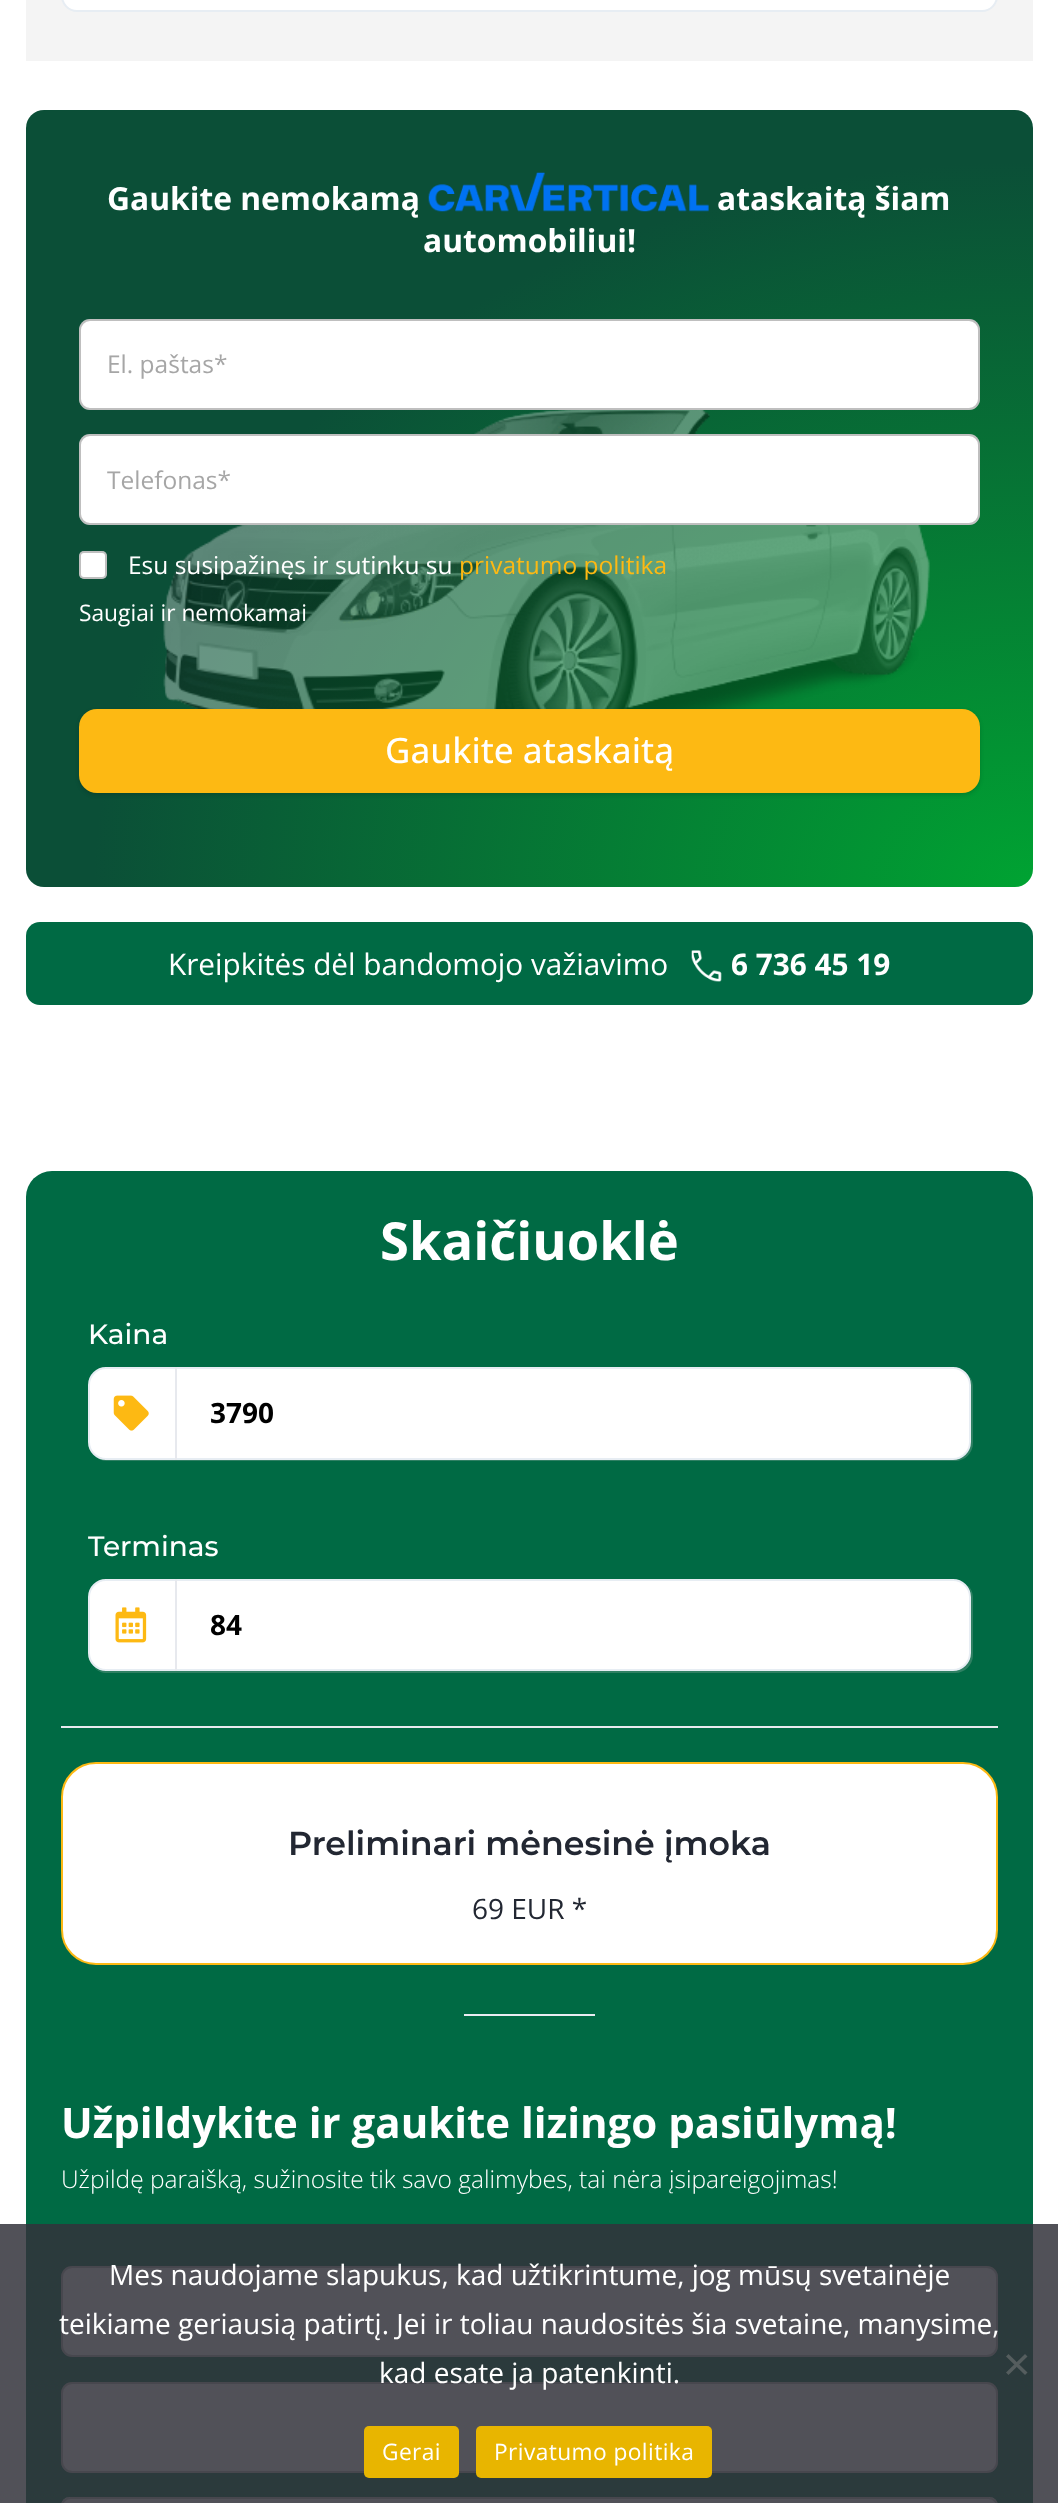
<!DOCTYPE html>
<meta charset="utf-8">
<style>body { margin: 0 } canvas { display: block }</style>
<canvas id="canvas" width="1058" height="2503"></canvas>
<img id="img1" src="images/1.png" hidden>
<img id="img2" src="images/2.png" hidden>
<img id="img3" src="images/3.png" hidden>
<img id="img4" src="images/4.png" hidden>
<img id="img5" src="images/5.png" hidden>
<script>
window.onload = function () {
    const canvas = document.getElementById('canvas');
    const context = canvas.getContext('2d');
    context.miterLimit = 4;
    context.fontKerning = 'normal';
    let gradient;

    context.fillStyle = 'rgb(255, 255, 255)';
    context.fillRect(0, 0, 1058, 2503);
    context.fillStyle = 'rgb(81, 81, 88)';
    context.fillRect(0, 2224, 1058, 279);
    context.fillStyle = 'rgb(244, 244, 244)';
    context.fillRect(26, 0, 1007, 61);
    context.fillStyle = 'rgb(255, 255, 255)';
    context.beginPath();
    context.roundRect(62, -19, 935, 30, 17);
    context.fill();
    context.strokeStyle = 'rgb(231, 237, 243)';
    context.lineWidth = 2;
    context.stroke();
    gradient = context.createRadialGradient(1033, 1148.5, 0, 1033, 1148.5, 1423);
    gradient.addColorStop(0, 'rgb(0, 163, 50)');
    gradient.addColorStop(0.66, 'rgb(11, 79, 55)');
    context.fillStyle = gradient;
    context.beginPath();
    context.roundRect(26, 110, 1007, 777, 18);
    context.save();
    context.clip();
    context.scale(1, 1099 / 1423);
    context.fillRect(0, 0, 1058, 3241);
    context.restore();
    context.drawImage(document.getElementById('img1'), 428, 172, 281, 40);
    context.fillStyle = 'rgb(255, 255, 255)';
    context.beginPath();
    context.roundRect(79, 319, 901, 91, 11);
    context.fill();
    context.beginPath();
    context.roundRect(80, 320, 899, 89, 10);
    context.strokeStyle = 'rgba(0, 0, 0, 0.25)';
    context.stroke();
    context.drawImage(document.getElementById('img2'), 163, 410, 767, 299);
    context.beginPath();
    context.roundRect(79, 434, 901, 91, 11);
    context.fill();
    context.beginPath();
    context.roundRect(80, 435, 899, 89, 10);
    context.stroke();
    context.beginPath();
    context.roundRect(79, 551, 28, 28, 5);
    context.fill();
    context.beginPath();
    context.roundRect(80, 552, 26, 26, 4);
    context.stroke();
    context.fillStyle = 'rgba(0, 0, 0, 0.15)';
    context.filter = 'blur(2px)';
    context.beginPath();
    context.roundRect(79, 711, 901, 84, 18);
    context.fill();
    context.filter = 'none';
    context.fillStyle = 'rgb(253, 185, 19)';
    context.beginPath();
    context.roundRect(79, 709, 901, 84, 18);
    context.fill();
    context.fillStyle = 'rgb(0, 106, 68)';
    context.beginPath();
    context.roundRect(26, 922, 1007, 83, 14);
    context.fill();
    context.drawImage(document.getElementById('img3'), 691, 950, 31, 32);
    context.beginPath();
    context.roundRect(26, 1171, 1007, 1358, 26);
    context.fill();
    context.fillStyle = 'rgb(43, 58, 60)';
    context.fillRect(26, 2224, 1007, 279);
    context.fillStyle = 'rgb(47, 128, 99)';
    context.beginPath();
    context.moveTo(95, 1456);
    context.bezierCurveTo(98, 1459, 102, 1461, 107, 1461);
    context.lineTo(955, 1461);
    context.bezierCurveTo(965, 1461, 973, 1453, 973, 1443);
    context.lineTo(973, 1387);
    context.bezierCurveTo(973, 1383, 972, 1379, 969, 1376);
    context.bezierCurveTo(970, 1378, 971, 1381, 971, 1384);
    context.lineTo(971, 1442);
    context.bezierCurveTo(971, 1452, 963, 1460, 954, 1460);
    context.lineTo(105, 1460);
    context.bezierCurveTo(101, 1460, 98, 1458, 95, 1456);
    context.closePath();
    context.fill();
    context.fillStyle = 'rgb(255, 255, 255)';
    context.beginPath();
    context.roundRect(89, 1368, 881, 91, 17);
    context.fill();
    context.strokeStyle = 'rgb(231, 237, 243)';
    context.stroke();
    context.drawImage(document.getElementById('img4'), 113, 1395, 36, 36);
    context.fillStyle = 'rgb(231, 233, 238)';
    context.fillRect(175, 1367, 2, 93);
    context.fillStyle = 'rgb(47, 128, 99)';
    context.beginPath();
    context.moveTo(94, 1667);
    context.bezierCurveTo(97, 1671, 102, 1673, 107, 1673);
    context.lineTo(955, 1673);
    context.bezierCurveTo(965, 1673, 973, 1665, 973, 1655);
    context.lineTo(973, 1598);
    context.bezierCurveTo(973, 1593, 971, 1588, 967, 1585);
    context.bezierCurveTo(970, 1588, 971, 1592, 971, 1596);
    context.lineTo(971, 1654);
    context.bezierCurveTo(971, 1663, 963, 1671, 954, 1671);
    context.lineTo(105, 1671);
    context.bezierCurveTo(101, 1671, 97, 1670, 94, 1667);
    context.closePath();
    context.fill();
    context.fillStyle = 'rgb(255, 255, 255)';
    context.beginPath();
    context.roundRect(89, 1580, 881, 90, 17);
    context.fill();
    context.stroke();
    context.drawImage(document.getElementById('img5'), 115, 1607, 32, 36);
    context.fillStyle = 'rgb(231, 233, 238)';
    context.fillRect(175, 1579, 2, 92);
    context.fillRect(61, 1726, 937, 2);
    context.fillStyle = 'rgb(255, 255, 255)';
    context.beginPath();
    context.roundRect(62, 1763, 935, 201, 34);
    context.fill();
    context.strokeStyle = 'rgb(253, 185, 19)';
    context.stroke();
    context.fillStyle = 'rgb(234, 236, 242)';
    context.fillRect(464, 2014, 131, 2);
    context.fillStyle = 'rgb(81, 81, 88)';
    context.beginPath();
    context.roundRect(61, 2266, 937, 91, 11);
    context.fill();
    context.beginPath();
    context.roundRect(62, 2267, 935, 89, 10);
    context.strokeStyle = 'rgba(43, 43, 49, 0.25)';
    context.stroke();
    context.beginPath();
    context.roundRect(61, 2382, 937, 91, 11);
    context.fill();
    context.beginPath();
    context.roundRect(62, 2383, 935, 89, 10);
    context.stroke();
    context.beginPath();
    context.roundRect(61, 2497, 937, 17, 11);
    context.fill();
    context.beginPath();
    context.roundRect(62, 2498, 935, 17, 10);
    context.stroke();
    context.fillStyle = 'rgb(85, 93, 94)';
    context.beginPath();
    context.moveTo(1025, 2354);
    context.lineTo(1027.5, 2356.5);
    context.lineTo(1008.5, 2375);
    context.lineTo(1006, 2372.5);
    context.closePath();
    context.fill();
    context.beginPath();
    context.moveTo(1006, 2356.5);
    context.lineTo(1008.5, 2354);
    context.lineTo(1027.5, 2372.5);
    context.lineTo(1025, 2375);
    context.closePath();
    context.fill();
    context.fillStyle = 'rgb(232, 181, 0)';
    context.beginPath();
    context.roundRect(364, 2426, 95, 52, 5);
    context.fill();
    context.beginPath();
    context.roundRect(476, 2426, 236, 52, 5);
    context.fill();
    context.font = 'bold 31.75px Open Sans';
    context.fillStyle = 'rgb(255, 255, 255)';
    context.fillText('Gaukite nemokamą', 107, 210);
    context.fillText('ataskaitą šiam', 717, 210);
    context.fillText('automobiliui!', 423, 252);
    context.font = '24.5px Open Sans';
    context.fillStyle = 'rgb(166, 166, 166)';
    context.fillText('El. paštas*', 107, 373);
    context.fillText('Telefonas*', 107, 489);
    context.fillStyle = 'rgb(255, 255, 255)';
    context.fillText('Esu susipažinęs ir sutinku su', 128, 574);
    context.fillStyle = 'rgb(253, 185, 19)';
    context.fillText('privatumo politika', 459, 574);
    context.font = '22.75px Open Sans';
    context.fillStyle = 'rgb(255, 255, 255)';
    context.fillText('Saugiai ir nemokamai', 79, 621);
    context.font = '500 35px Open Sans';
    context.fillText('Gaukite ataskaitą', 385, 763);
    context.font = '29.75px Open Sans';
    context.fillText('Kreipkitės dėl bandomojo važiavimo', 168, 975);
    context.font = 'bold 29.75px Open Sans';
    context.fillText('6 736 45 19', 731, 975);
    context.font = 'bold 52.5px Open Sans';
    context.fillText('Skaičiuoklė', 380, 1260);
    context.font = '500 28px Montserrat';
    context.fillText('Kaina', 88, 1344);
    context.font = 'bold 28px Open Sans';
    context.fillStyle = 'rgb(0, 0, 0)';
    context.fillText('3790', 210, 1423);
    context.font = '500 28px Montserrat';
    context.fillStyle = 'rgb(255, 255, 255)';
    context.fillText('Terminas', 88, 1556);
    context.font = 'bold 28px Open Sans';
    context.fillStyle = 'rgb(0, 0, 0)';
    context.fillText('84', 210, 1635);
    context.font = '600 33.25px Montserrat';
    context.fillStyle = 'rgb(34, 39, 50)';
    context.fillText('Preliminari mėnesinė įmoka', 288, 1855);
    context.font = '28px Open Sans';
    context.fillText('69 EUR *', 472, 1919);
    context.font = 'bold 42px Open Sans';
    context.fillStyle = 'rgb(255, 255, 255)';
    context.fillText('Užpildykite ir gaukite lizingo pasiūlymą!', 61, 2138);
    context.font = '300 24.5px Open Sans';
    context.fillText('Užpildę paraišką, sužinosite tik savo galimybes, tai nėra įsipareigojimas!', 61, 2188);
    context.font = '28px Open Sans';
    context.fillText('Mes naudojame slapukus, kad užtikrintume, jog mūsų svetainėje', 109, 2285);
    context.fillText('teikiame geriausią patirtį. Jei ir toliau naudositės šia svetaine, manysime,', 59, 2334);
    context.fillText('kad esate ja patenkinti.', 379, 2383);
    context.letterSpacing = '0.4px';
    context.font = '22.75px Open Sans';
    context.fillText('Gerai', 382, 2460);
    context.fillText('Privatumo politika', 494, 2460);
};
</script>
